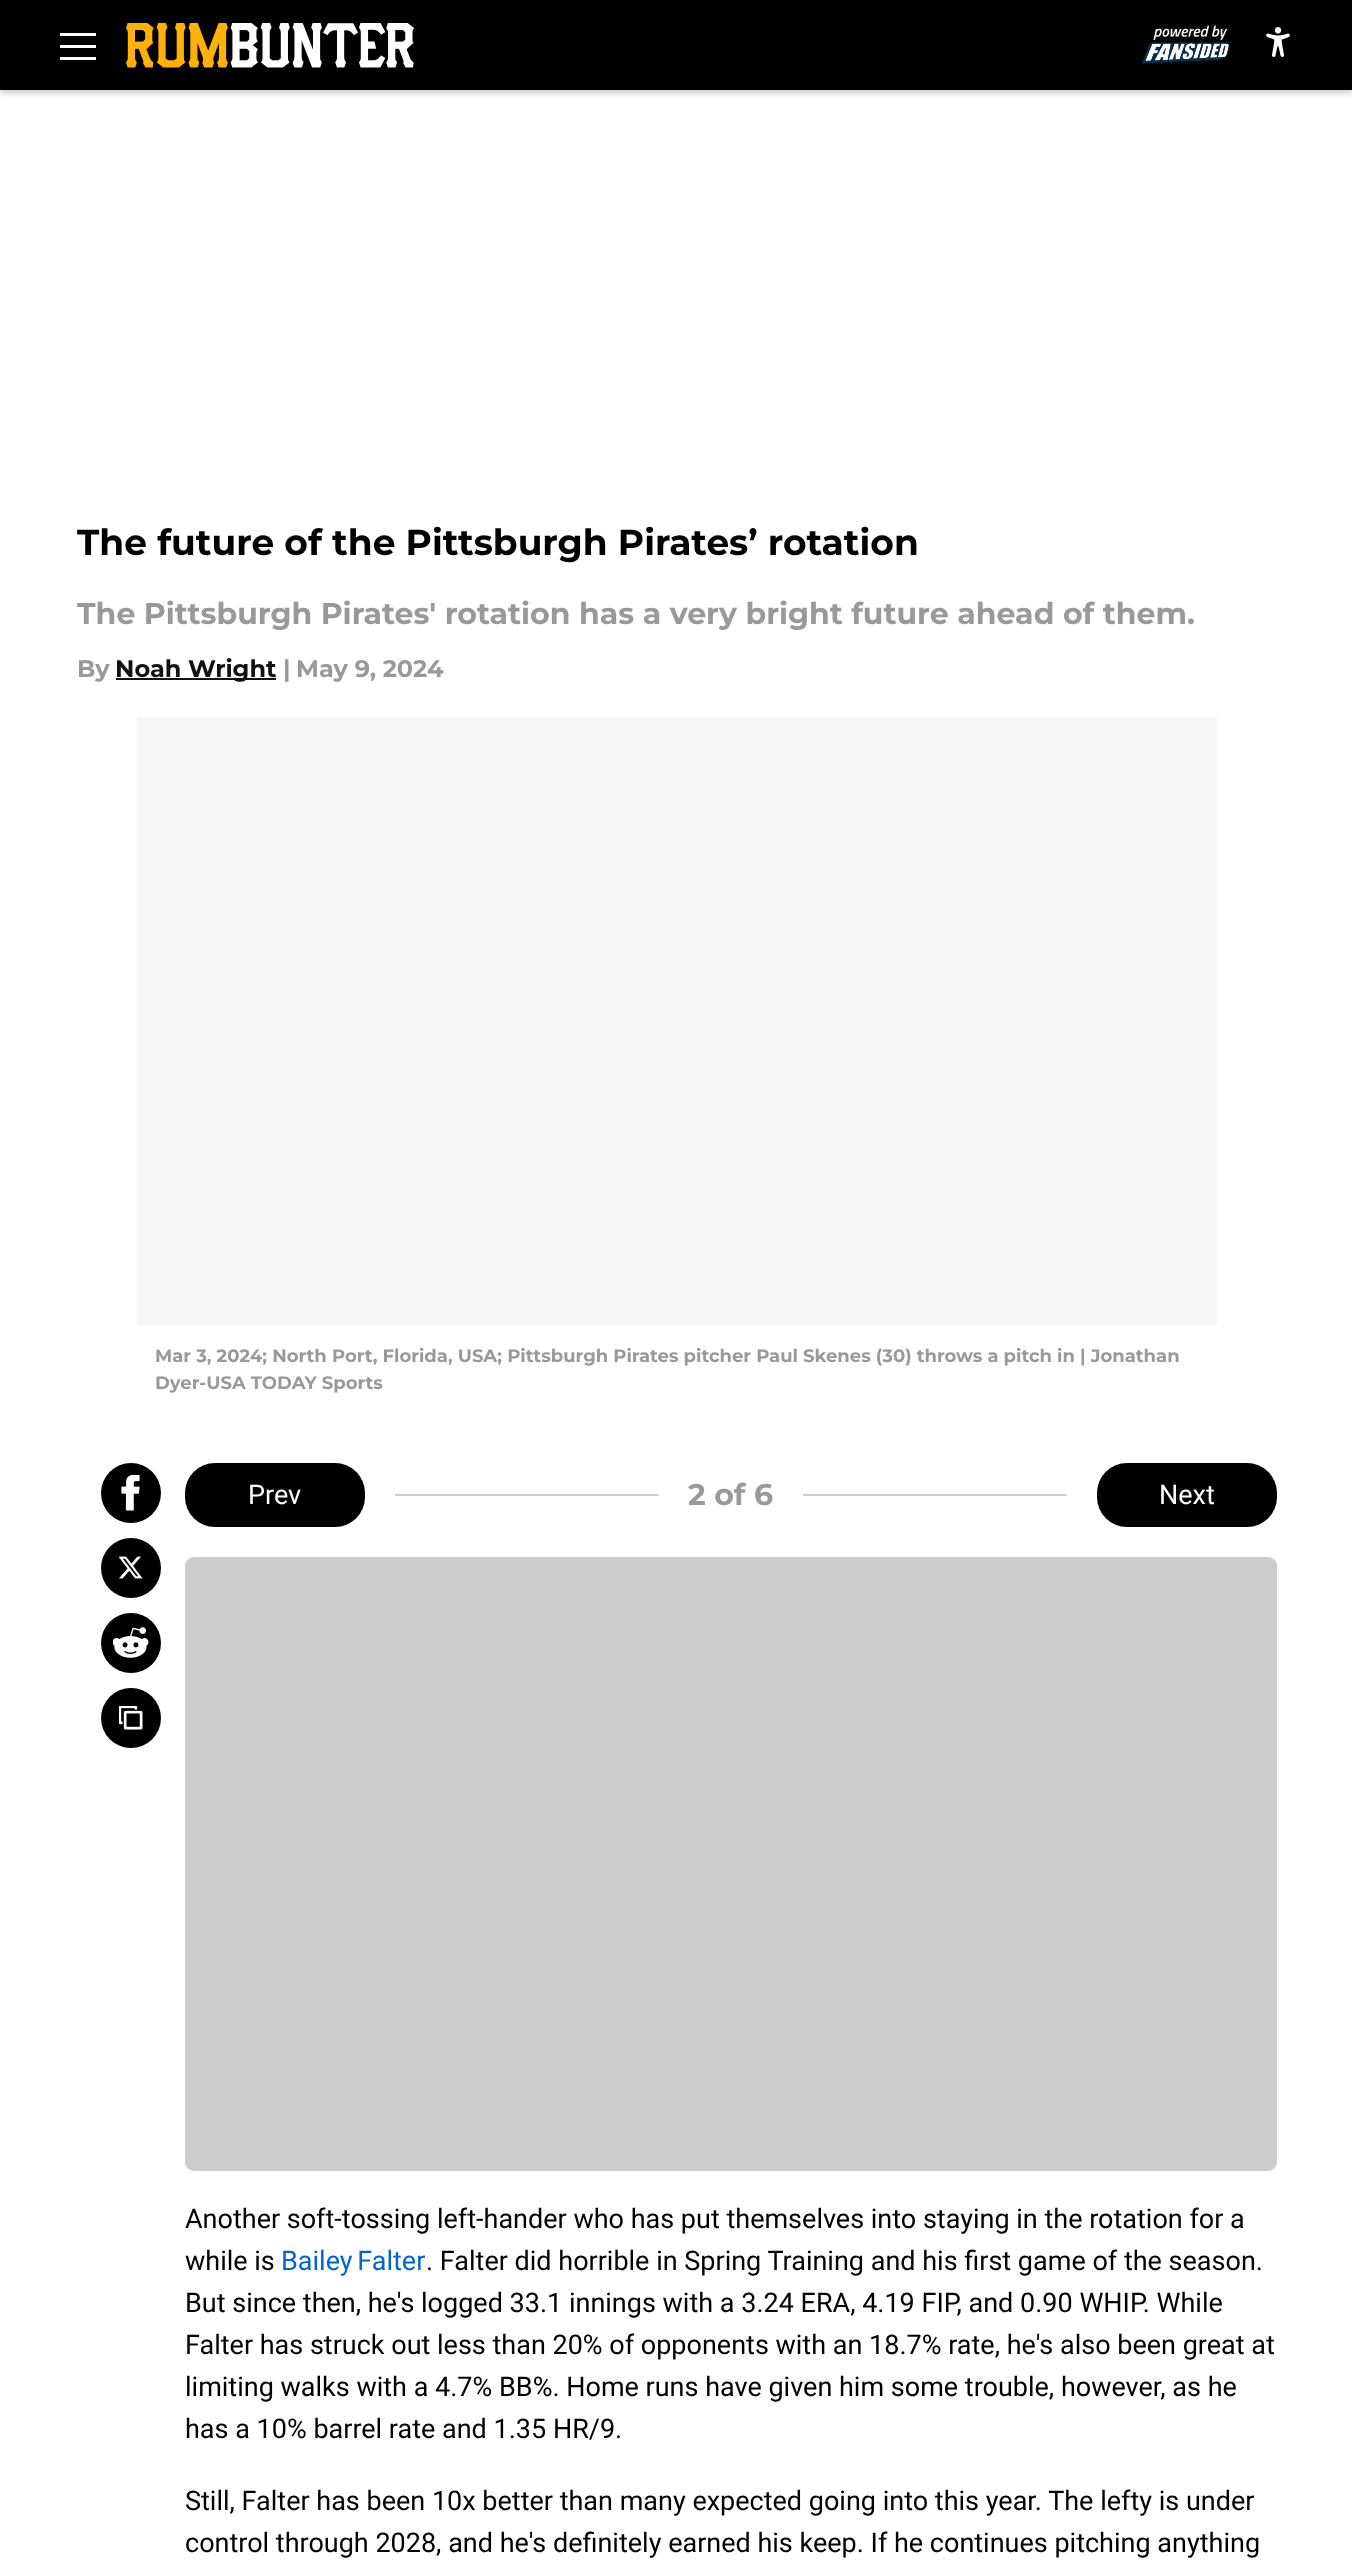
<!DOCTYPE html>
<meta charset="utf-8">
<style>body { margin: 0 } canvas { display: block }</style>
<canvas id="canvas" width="1352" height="2567"></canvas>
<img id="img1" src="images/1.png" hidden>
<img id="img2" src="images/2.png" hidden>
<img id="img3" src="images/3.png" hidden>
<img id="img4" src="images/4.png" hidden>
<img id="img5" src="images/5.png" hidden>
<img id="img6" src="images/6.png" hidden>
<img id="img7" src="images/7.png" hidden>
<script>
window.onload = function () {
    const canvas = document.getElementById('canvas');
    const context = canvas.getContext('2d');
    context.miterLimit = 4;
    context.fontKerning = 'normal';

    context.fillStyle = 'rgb(255, 255, 255)';
    context.fillRect(0, 0, 1352, 2567);
    context.fillStyle = 'rgba(0, 0, 0, 0.2)';
    context.filter = 'blur(3px)';
    context.beginPath();
    context.rect(0, 3, 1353, 90);
    context.fill();
    context.filter = 'none';
    context.fillStyle = 'rgb(0, 0, 0)';
    context.fillRect(0, 0, 1352, 90);
    context.fillStyle = 'rgb(255, 255, 255)';
    context.fillRect(60, 33, 36, 3);
    context.fillRect(60, 45, 36, 3);
    context.fillRect(60, 57, 36, 3);
    context.drawImage(document.getElementById('img1'), 126, 23, 288, 45);
    context.drawImage(document.getElementById('img2'), 1141, 25, 89, 39);
    context.drawImage(document.getElementById('img3'), 1266, 27, 24, 30);
    context.fillStyle = 'rgb(17, 17, 17)';
    context.fillRect(116, 678, 160, 2);
    context.fillStyle = 'rgb(247, 247, 247)';
    context.fillRect(137, 717, 1080, 608);
    context.fillStyle = 'rgb(0, 0, 0)';
    context.beginPath();
    context.arc(131, 1493, 30, 0, 2 * Math.PI);
    context.fill();
    context.drawImage(document.getElementById('img4'), 121, 1475, 19, 36);
    context.beginPath();
    context.arc(131, 1568, 30, 0, 2 * Math.PI);
    context.fill();
    context.drawImage(document.getElementById('img5'), 119, 1556, 24, 23);
    context.beginPath();
    context.arc(131, 1643, 30, 0, 2 * Math.PI);
    context.fill();
    context.drawImage(document.getElementById('img6'), 113, 1627, 36, 31);
    context.beginPath();
    context.arc(131, 1718, 30, 0, 2 * Math.PI);
    context.fill();
    context.drawImage(document.getElementById('img7'), 119, 1706, 24, 24);
    context.beginPath();
    context.roundRect(185, 1463, 180, 64, 30);
    context.fill();
    context.fillStyle = 'rgb(204, 204, 204)';
    context.fillRect(395, 1494, 264, 2);
    context.fillRect(803, 1494, 264, 2);
    context.fillStyle = 'rgb(0, 0, 0)';
    context.beginPath();
    context.roundRect(1097, 1463, 180, 64, 30);
    context.fill();
    context.fillStyle = 'rgb(204, 204, 204)';
    context.beginPath();
    context.roundRect(185, 1557, 1092, 614, 9);
    context.fill();
    context.font = '100 36px Montserrat';
    context.fillStyle = 'rgb(0, 0, 0)';
    context.fillText('The future of the Pittsburgh Pirates’ rotation', 77, 555);
    context.font = '100 30px Montserrat';
    context.fillStyle = 'rgb(153, 153, 153)';
    context.fillText('The Pittsburgh Pirates\' rotation has a very bright future ahead of them.', 77, 624);
    context.font = '100 24px Montserrat';
    context.fillText('By', 77, 677);
    context.fillStyle = 'rgb(17, 17, 17)';
    context.fillText('Noah Wright', 115, 677);
    context.fillStyle = 'rgb(153, 153, 153)';
    context.fillText('|', 283, 677);
    context.fillText('May 9, 2024', 296, 677);
    context.font = '100 18px Montserrat';
    context.fillText('Mar 3, 2024; North Port, Florida, USA; Pittsburgh Pirates pitcher Paul Skenes (30) throws a pitch in | Jonathan', 155, 1362);
    context.fillText('Dyer-USA TODAY Sports', 155, 1389);
    context.font = '27px Roboto';
    context.fillStyle = 'rgb(255, 255, 255)';
    context.fillText('Prev', 248, 1504);
    context.font = '100 30px Montserrat';
    context.fillStyle = 'rgb(153, 153, 153)';
    context.fillText('2 of 6', 688, 1505);
    context.font = '27px Roboto';
    context.fillStyle = 'rgb(255, 255, 255)';
    context.fillText('Next', 1159, 1504);
    context.fillStyle = 'rgb(0, 0, 0)';
    context.fillText('Another soft-tossing left-hander who has put themselves into staying in the rotation for a', 185, 2228);
    context.fillText('while is', 185, 2270);
    context.wordSpacing = '-2px';
    context.fillStyle = 'rgb(0, 102, 204)';
    context.fillText('Bailey Falter', 281, 2270);
    context.wordSpacing = '0px';
    context.fillStyle = 'rgb(0, 0, 0)';
    context.fillText('. Falter did horrible in Spring Training and his first game of the season.', 426, 2270);
    context.fillText('But since then, he\'s logged 33.1 innings with a 3.24 ERA, 4.19 FIP, and 0.90 WHIP. While', 185, 2312);
    context.fillText('Falter has struck out less than 20% of opponents with an 18.7% rate, he\'s also been great at', 185, 2354);
    context.fillText('limiting walks with a 4.7% BB%. Home runs have given him some trouble, however, as he', 185, 2396);
    context.fillText('has a 10% barrel rate and 1.35 HR/9.', 185, 2438);
    context.fillText('Still, Falter has been 10x better than many expected going into this year. The lefty is under', 185, 2510);
    context.fillText('control through 2028, and he\'s definitely earned his keep. If he continues pitching anything', 185, 2552);
};
</script>
